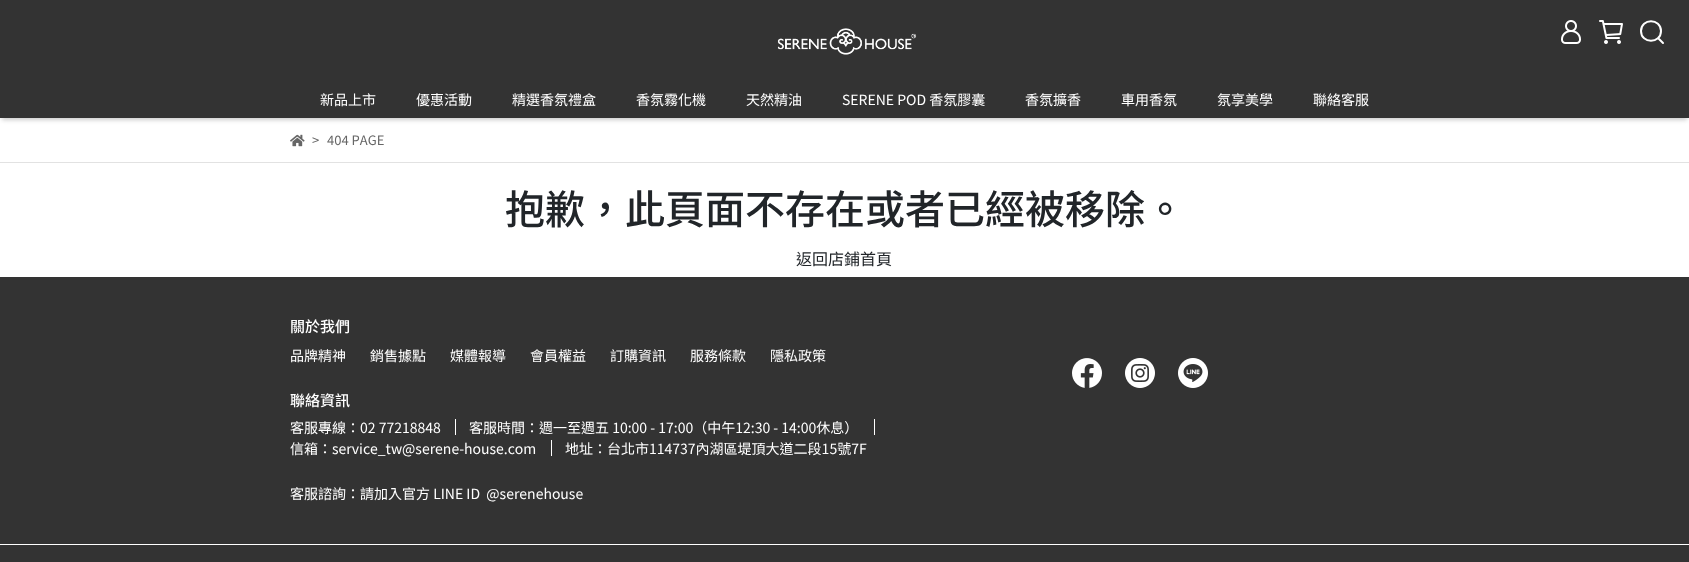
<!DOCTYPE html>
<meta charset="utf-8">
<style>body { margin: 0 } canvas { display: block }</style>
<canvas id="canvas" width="1689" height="562"></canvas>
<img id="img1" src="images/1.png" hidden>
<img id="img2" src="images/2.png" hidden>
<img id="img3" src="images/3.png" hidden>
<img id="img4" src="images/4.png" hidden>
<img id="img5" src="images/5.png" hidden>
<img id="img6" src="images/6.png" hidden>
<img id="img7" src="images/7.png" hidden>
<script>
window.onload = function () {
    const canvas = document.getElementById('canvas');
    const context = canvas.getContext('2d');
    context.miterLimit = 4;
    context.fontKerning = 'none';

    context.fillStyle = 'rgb(255, 255, 255)';
    context.fillRect(0, 0, 1689, 562);
    context.fillStyle = 'rgb(51, 51, 51)';
    context.fillRect(0, 0, 1689, 81);
    context.drawImage(document.getElementById('img1'), 777, 28, 140, 27);
    context.drawImage(document.getElementById('img2'), 1561, 20, 20, 24);
    context.drawImage(document.getElementById('img3'), 1599, 20, 24, 24);
    context.beginPath();
    context.moveTo(1661, 31);
    context.bezierCurveTo(1661, 44, 1641, 44, 1641, 31);
    context.bezierCurveTo(1641, 18, 1661, 18, 1661, 31);
    context.closePath();
    context.moveTo(1659, 39);
    context.lineTo(1663, 43);
    context.strokeStyle = 'rgb(255, 255, 255)';
    context.lineWidth = 2;
    context.lineCap = 'round';
    context.lineJoin = 'round';
    context.stroke();
    context.fillStyle = 'rgba(0, 0, 0, 0.2)';
    context.filter = 'blur(2px)';
    context.beginPath();
    context.rect(2, 87, 1685, 33);
    context.fill();
    context.filter = 'none';
    context.fillStyle = 'rgb(51, 51, 51)';
    context.fillRect(0, 81, 1689, 37);
    context.fillStyle = 'rgb(226, 226, 226)';
    context.fillRect(0, 162, 1689, 1);
    context.drawImage(document.getElementById('img4'), 290, 134, 15, 13);
    context.fillStyle = 'rgb(51, 51, 51)';
    context.fillRect(0, 277, 1689, 285);
    context.fillStyle = 'rgb(255, 255, 255)';
    context.fillRect(455, 419, 1, 16);
    context.fillRect(874, 419, 1, 16);
    context.fillRect(551, 440, 1, 16);
    context.drawImage(document.getElementById('img5'), 1072, 358, 30, 30);
    context.drawImage(document.getElementById('img6'), 1125, 358, 30, 30);
    context.drawImage(document.getElementById('img7'), 1178, 358, 30, 30);
    context.fillRect(0, 544, 1689, 1);
    context.font = '14px Noto Sans TC';
    context.fillText('新品上市', 320, 105);
    context.fillText('優惠活動', 416, 105);
    context.fillText('精選香氛禮盒', 512, 105);
    context.fillText('香氛霧化機', 636, 105);
    context.fillText('天然精油', 746, 105);
    context.fillText('SERENE POD 香氛膠囊', 842, 105);
    context.fillText('香氛擴香', 1025, 105);
    context.fillText('車用香氛', 1121, 105);
    context.fillText('氛享美學', 1217, 105);
    context.fillText('聯絡客服', 1313, 105);
    context.font = '13px Noto Sans TC';
    context.fillStyle = 'rgb(102, 102, 102)';
    context.fillText('>', 312, 145);
    context.fillText('404 PAGE', 327, 145);
    context.font = '500 40px Noto Sans TC';
    context.fillStyle = 'rgb(33, 37, 41)';
    context.fillText('抱歉，此頁面不存在或者已經被移除。', 505, 224);
    context.font = '16px Noto Sans TC';
    context.fillText('返回店鋪首頁', 796, 265);
    context.font = '500 15px Noto Sans TC';
    context.fillStyle = 'rgb(255, 255, 255)';
    context.fillText('關於我們', 290, 332);
    context.font = '14px Noto Sans TC';
    context.fillText('品牌精神', 290, 361);
    context.fillText('銷售據點', 370, 361);
    context.fillText('媒體報導', 450, 361);
    context.fillText('會員權益', 530, 361);
    context.fillText('訂購資訊', 610, 361);
    context.fillText('服務條款', 690, 361);
    context.fillText('隱私政策', 770, 361);
    context.font = '500 15px Noto Sans TC';
    context.fillText('聯絡資訊', 290, 406);
    context.font = '14px Noto Sans TC';
    context.fillText('客服專線：02 77218848', 290, 433);
    context.fillText('客服時間：週一至週五 10:00 - 17:00（中午12:30 - 14:00休息）', 469, 433);
    context.fillText('信箱：service_tw@serene-house.com', 290, 454);
    context.fillText('地址：台北市114737內湖區堤頂大道二段15號7F', 565, 454);
    context.fillText('客服諮詢：請加入官方 LINE ID  @serenehouse', 290, 499);
};
</script>
